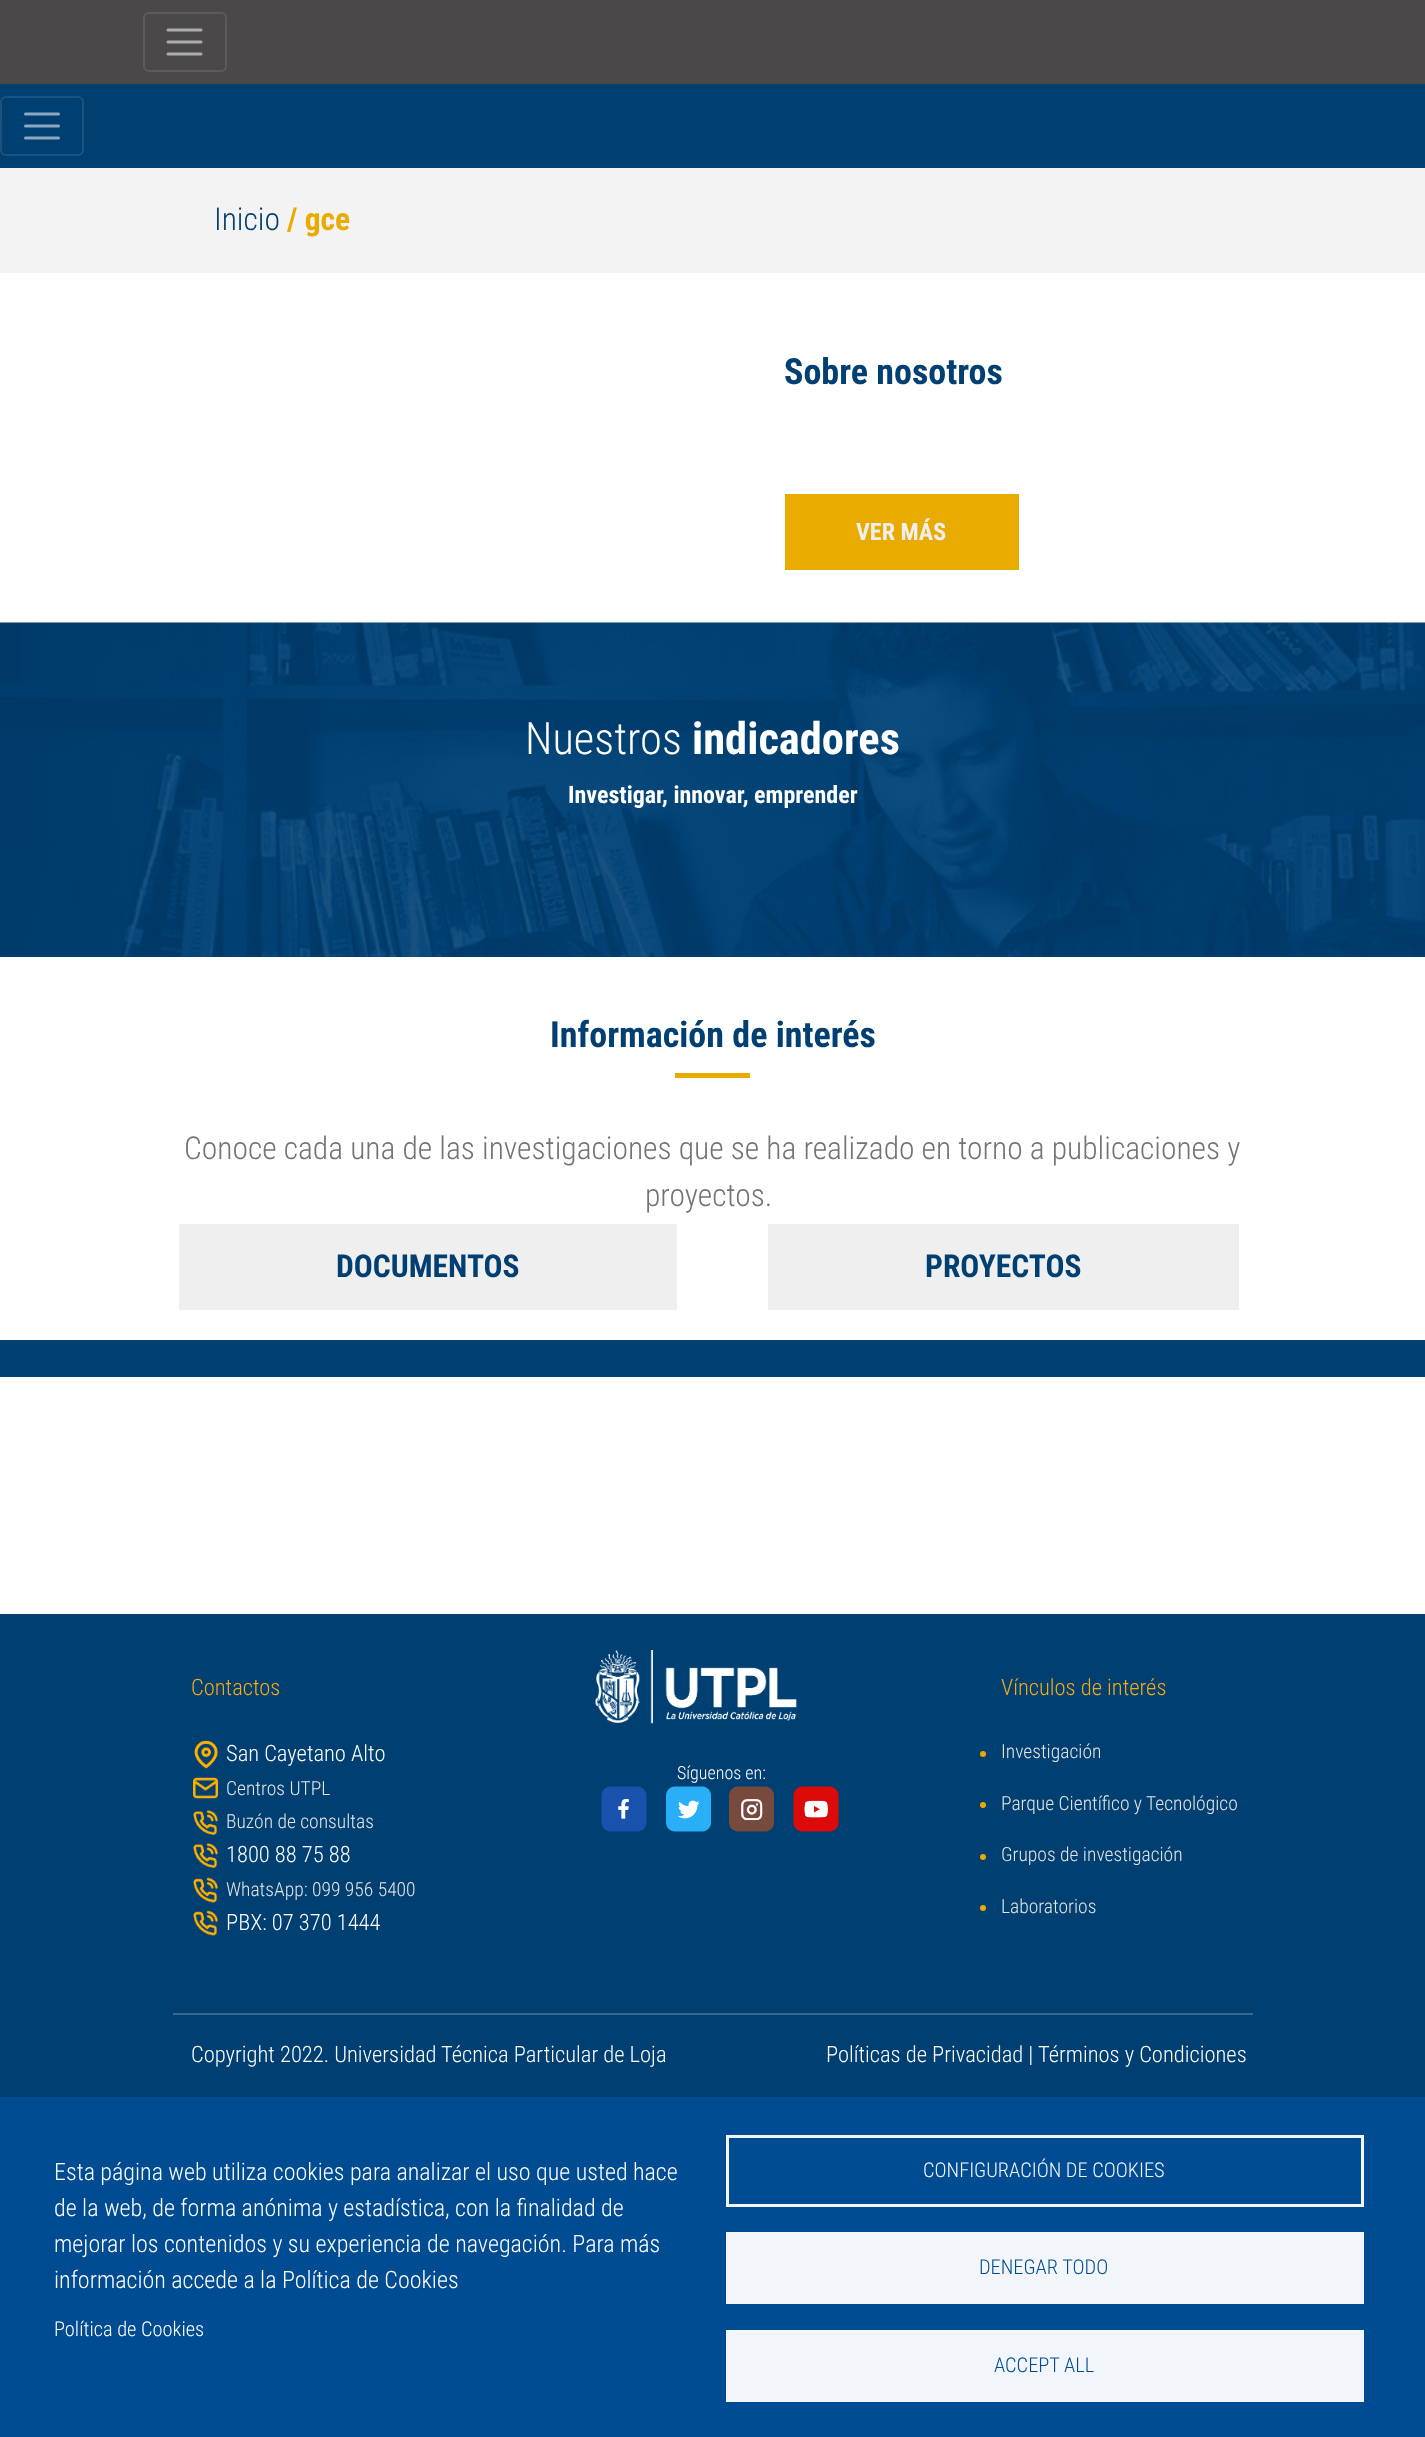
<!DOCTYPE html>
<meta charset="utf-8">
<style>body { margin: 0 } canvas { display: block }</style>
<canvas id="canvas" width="1425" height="2437"></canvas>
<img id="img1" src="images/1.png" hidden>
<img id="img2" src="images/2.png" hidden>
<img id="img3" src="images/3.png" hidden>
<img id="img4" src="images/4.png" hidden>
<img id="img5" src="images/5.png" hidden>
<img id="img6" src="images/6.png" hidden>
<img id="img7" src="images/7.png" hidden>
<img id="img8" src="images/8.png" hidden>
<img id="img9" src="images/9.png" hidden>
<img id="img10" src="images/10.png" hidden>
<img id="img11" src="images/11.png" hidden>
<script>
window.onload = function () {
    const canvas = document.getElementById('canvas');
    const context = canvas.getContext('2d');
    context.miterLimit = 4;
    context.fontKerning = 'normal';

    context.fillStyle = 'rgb(255, 255, 255)';
    context.fillRect(0, 0, 1425, 2437);
    context.fillStyle = 'rgb(74, 72, 72)';
    context.fillRect(0, 0, 1425, 84);
    context.beginPath();
    context.roundRect(144, 13, 82, 58, 5);
    context.strokeStyle = 'rgb(92, 90, 90)';
    context.lineWidth = 2;
    context.stroke();
    context.beginPath();
    context.moveTo(168, 30);
    context.lineTo(201, 30);
    context.moveTo(168, 42);
    context.lineTo(201, 42);
    context.moveTo(168, 54);
    context.lineTo(201, 54);
    context.strokeStyle = 'rgb(174, 173, 173)';
    context.lineWidth = 3;
    context.lineCap = 'round';
    context.stroke();
    context.fillStyle = 'rgb(0, 63, 114)';
    context.fillRect(0, 84, 1425, 84);
    context.beginPath();
    context.roundRect(1, 97, 82, 58, 5);
    context.strokeStyle = 'rgb(26, 82, 128)';
    context.lineWidth = 2;
    context.stroke();
    context.beginPath();
    context.moveTo(25.5, 114);
    context.lineTo(58.5, 114);
    context.moveTo(25.5, 126);
    context.lineTo(58.5, 126);
    context.moveTo(25.5, 138);
    context.lineTo(58.5, 138);
    context.strokeStyle = 'rgb(140, 169, 192)';
    context.lineWidth = 3;
    context.stroke();
    context.fillStyle = 'rgb(243, 243, 243)';
    context.fillRect(0, 168, 1425, 105);
    context.fillStyle = 'rgb(234, 171, 0)';
    context.fillRect(785, 494, 234, 76);
    context.drawImage(document.getElementById('img1'), 0, 622, 1425, 335);
    context.fillRect(675, 1073, 75, 5);
    context.fillStyle = 'rgb(240, 239, 239)';
    context.fillRect(179, 1224, 498, 86);
    context.fillRect(768, 1224, 471, 86);
    context.fillStyle = 'rgb(0, 63, 114)';
    context.fillRect(0, 1340, 1425, 37);
    context.fillRect(0, 1614, 1425, 483);
    context.drawImage(document.getElementById('img2'), 194, 1740, 24, 29);
    context.drawImage(document.getElementById('img3'), 193, 1777, 25, 22);
    context.drawImage(document.getElementById('img4'), 193, 1810, 25, 25);
    context.drawImage(document.getElementById('img5'), 193, 1843, 25, 25);
    context.drawImage(document.getElementById('img6'), 193, 1877, 25, 26);
    context.drawImage(document.getElementById('img6'), 193, 1910, 25, 26);
    context.drawImage(document.getElementById('img7'), 595, 1650, 202, 74);
    context.drawImage(document.getElementById('img8'), 601, 1786, 46, 46);
    context.drawImage(document.getElementById('img9'), 666, 1786, 45, 46);
    context.drawImage(document.getElementById('img10'), 729, 1786, 45, 46);
    context.drawImage(document.getElementById('img11'), 793, 1786, 46, 46);
    context.fillStyle = 'rgb(234, 171, 0)';
    context.beginPath();
    context.arc(983, 1754, 3, 0, 2 * Math.PI);
    context.fill();
    context.beginPath();
    context.arc(983, 1805, 3, 0, 2 * Math.PI);
    context.fill();
    context.beginPath();
    context.arc(983, 1857, 3, 0, 2 * Math.PI);
    context.fill();
    context.beginPath();
    context.arc(983, 1908, 3, 0, 2 * Math.PI);
    context.fill();
    context.fillStyle = 'rgb(54, 104, 144)';
    context.fillRect(173, 2013, 1080, 2);
    context.fillStyle = 'rgb(0, 76, 147)';
    context.fillRect(0, 2097, 1425, 340);
    context.strokeStyle = 'rgb(242, 246, 250)';
    context.strokeRect(727.5, 2136.5, 635, 69);
    context.fillStyle = 'rgb(242, 246, 250)';
    context.fillRect(726, 2232, 638, 72);
    context.fillRect(726, 2330, 638, 72);
    context.font = '300 31.5px Roboto Condensed';
    context.fillStyle = 'rgb(0, 63, 114)';
    context.fillText('Inicio', 214, 230);
    context.font = 'bold 31.5px Roboto Condensed';
    context.fillStyle = 'rgb(234, 171, 0)';
    context.fillText('/ gce', 287, 230);
    context.font = 'bold 36px Roboto Condensed';
    context.fillStyle = 'rgb(0, 63, 114)';
    context.fillText('Sobre nosotros', 784, 384);
    context.font = 'bold 24px Roboto Condensed';
    context.fillStyle = 'rgb(240, 239, 239)';
    context.fillText('VER MÁS', 856, 540);
    context.font = '300 44.5px Roboto Condensed';
    context.fillStyle = 'rgb(255, 255, 255)';
    context.fillText('Nuestros', 525, 754);
    context.font = 'bold 44.5px Roboto Condensed';
    context.fillText('indicadores', 692, 754);
    context.font = 'bold 24px Roboto Condensed';
    context.fillText('Investigar, innovar, emprender', 568, 803);
    context.font = 'bold 36px Roboto Condensed';
    context.fillStyle = 'rgb(0, 63, 114)';
    context.fillText('Información de interés', 550, 1047);
    context.font = '300 31.5px Roboto Condensed';
    context.fillStyle = 'rgb(115, 115, 115)';
    context.fillText('Conoce cada una de las investigaciones que se ha realizado en torno a publicaciones y', 184, 1159);
    context.fillText('proyectos.', 645, 1206);
    context.font = 'bold 31.5px Roboto Condensed';
    context.fillStyle = 'rgb(0, 63, 114)';
    context.fillText('DOCUMENTOS', 336, 1277);
    context.fillText('PROYECTOS', 925, 1277);
    context.font = '300 22.5px Roboto Condensed';
    context.fillStyle = 'rgb(244, 171, 20)';
    context.fillText('Contactos', 191, 1695);
    context.fillStyle = 'rgb(255, 255, 255)';
    context.fillText('San Cayetano Alto', 226, 1761);
    context.font = '300 19.5px Roboto Condensed';
    context.fillStyle = 'rgb(228, 228, 228)';
    context.fillText('Centros UTPL', 226, 1795);
    context.fillText('Buzón de consultas', 226, 1828);
    context.font = '300 22.5px Roboto Condensed';
    context.fillStyle = 'rgb(255, 255, 255)';
    context.fillText('1800 88 75 88', 226, 1862);
    context.font = '300 19.5px Roboto Condensed';
    context.fillStyle = 'rgb(228, 228, 228)';
    context.fillText('WhatsApp: 099 956 5400', 226, 1896);
    context.font = '300 22.5px Roboto Condensed';
    context.fillStyle = 'rgb(255, 255, 255)';
    context.fillText('PBX: 07 370 1444', 226, 1930);
    context.font = '300 18px Roboto Condensed';
    context.fillText('Síguenos en:', 677, 1779);
    context.font = '300 22.5px Roboto Condensed';
    context.fillStyle = 'rgb(244, 171, 20)';
    context.fillText('Vínculos de interés', 1001, 1695);
    context.font = '300 19.5px Roboto Condensed';
    context.fillStyle = 'rgb(228, 228, 228)';
    context.fillText('Investigación', 1001, 1758);
    context.fillText('Parque Científico y Tecnológico', 1001, 1810);
    context.fillText('Grupos de investigación', 1001, 1861);
    context.fillText('Laboratorios', 1001, 1913);
    context.font = '300 22.5px Roboto Condensed';
    context.fillStyle = 'rgb(255, 255, 255)';
    context.fillText('Copyright 2022. Universidad Técnica Particular de Loja', 191, 2062);
    context.fillText('Políticas de Privacidad |', 826, 2062);
    context.fillText('Términos y Condiciones', 1038, 2062);
    context.font = '300 24px Roboto Condensed';
    context.fillText('Esta página web utiliza cookies para analizar el uso que usted hace', 54, 2180);
    context.fillText('de la web, de forma anónima y estadística, con la finalidad de', 54, 2216);
    context.fillText('mejorar los contenidos y su experiencia de navegación. Para más', 54, 2252);
    context.fillText('información accede a la Política de Cookies', 54, 2288);
    context.font = '300 20.4px Roboto Condensed';
    context.fillText('Política de Cookies', 54, 2336);
    context.fillStyle = 'rgb(242, 246, 250)';
    context.fillText('CONFIGURACIÓN DE COOKIES', 923, 2177);
    context.fillStyle = 'rgb(0, 76, 147)';
    context.fillText('DENEGAR TODO', 979, 2274);
    context.fillText('ACCEPT ALL', 994, 2372);
};
</script>
